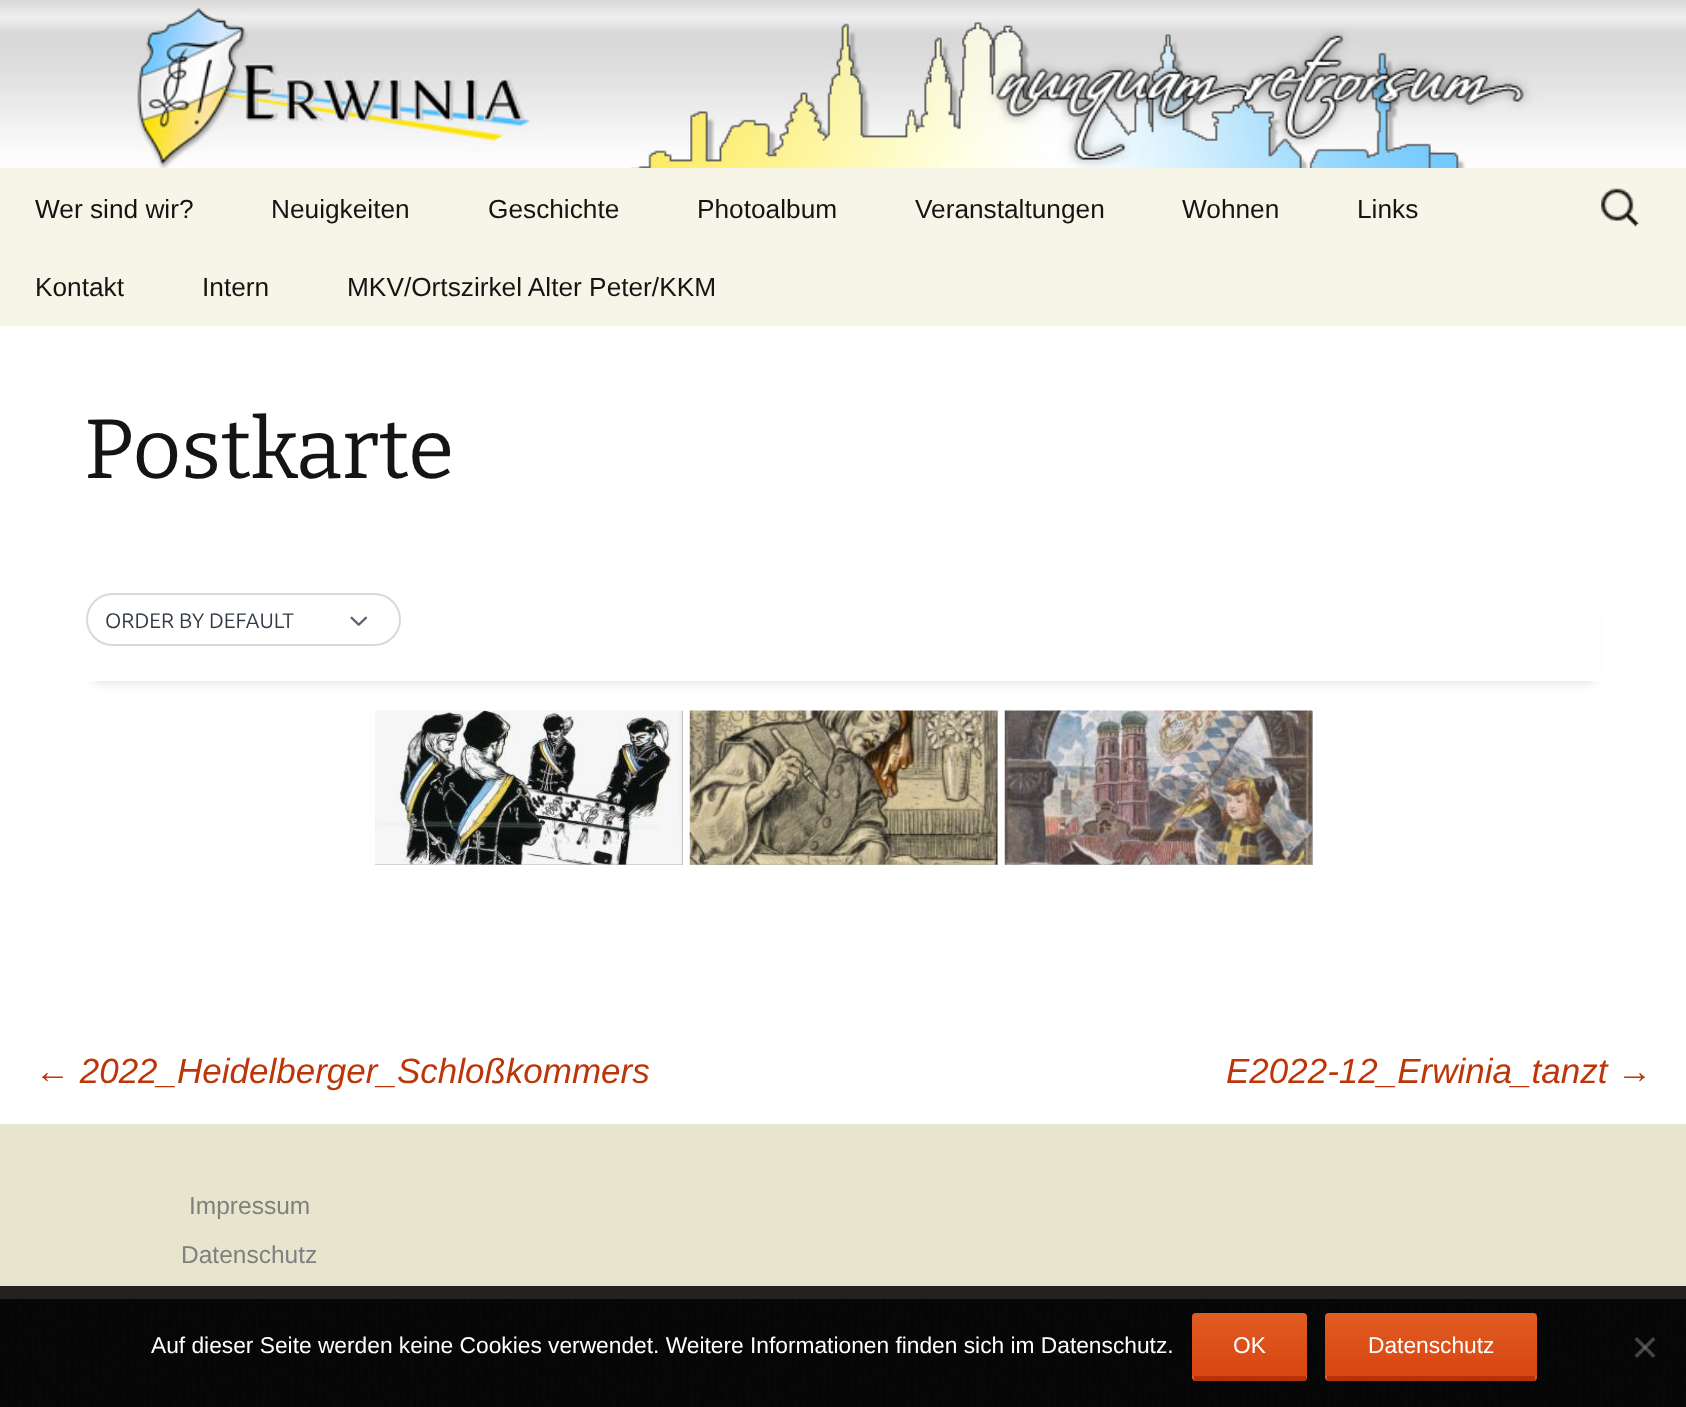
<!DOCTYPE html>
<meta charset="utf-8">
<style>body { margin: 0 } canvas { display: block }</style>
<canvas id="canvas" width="1686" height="1407"></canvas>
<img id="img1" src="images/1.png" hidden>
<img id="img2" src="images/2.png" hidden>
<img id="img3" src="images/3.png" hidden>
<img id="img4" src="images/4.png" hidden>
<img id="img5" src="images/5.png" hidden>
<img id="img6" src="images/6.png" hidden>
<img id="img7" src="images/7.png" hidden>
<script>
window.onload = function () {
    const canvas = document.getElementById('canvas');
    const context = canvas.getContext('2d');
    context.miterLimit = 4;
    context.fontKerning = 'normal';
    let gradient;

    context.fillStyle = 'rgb(255, 255, 255)';
    context.fillRect(0, 0, 1686, 1407);
    context.drawImage(document.getElementById('img1'), 0, 1299, 1686, 108);
    context.drawImage(document.getElementById('img2'), 0, 0, 1686, 168);
    context.fillStyle = 'rgb(247, 245, 231)';
    context.fillRect(0, 168, 1686, 158);
    context.drawImage(document.getElementById('img3'), 1601, 188, 38, 39);
    context.save();
    context.beginPath();
    context.moveTo(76, 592);
    context.lineTo(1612, 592);
    context.lineTo(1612, 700);
    context.lineTo(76, 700);
    context.closePath();
    context.moveTo(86, 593);
    context.lineTo(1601, 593);
    context.lineTo(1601, 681);
    context.lineTo(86, 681);
    context.closePath();
    context.clip('evenodd');
    context.fillStyle = 'rgba(0, 0, 0, 0.16)';
    context.filter = 'blur(6px)';
    context.beginPath();
    context.rect(95, 611, 1498, 70);
    context.fill();
    context.filter = 'none';
    context.restore();
    context.beginPath();
    context.roundRect(87, 594, 313, 51, 25.5);
    context.strokeStyle = 'rgb(217, 217, 217)';
    context.lineWidth = 2;
    context.stroke();
    context.drawImage(document.getElementById('img4'), 350, 616, 18, 10);
    context.fillStyle = 'rgb(179, 179, 179)';
    context.fillRect(375, 711, 308, 154);
    context.drawImage(document.getElementById('img5'), 375, 710, 308, 155);
    context.fillRect(690, 711, 308, 154);
    context.drawImage(document.getElementById('img6'), 689, 710, 309, 155);
    context.fillRect(1005, 711, 308, 154);
    context.drawImage(document.getElementById('img7'), 1004, 710, 309, 155);
    context.fillStyle = 'rgb(232, 229, 206)';
    context.fillRect(0, 1124, 1686, 175);
    context.fillStyle = 'rgba(0, 0, 0, 0.85)';
    context.fillRect(0, 1286, 1686, 121);
    gradient = context.createLinearGradient(1250, 1313, 1250, 1376);
    gradient.addColorStop(0, 'rgb(224, 93, 34)');
    gradient.addColorStop(1, 'rgb(217, 68, 18)');
    context.fillStyle = gradient;
    context.beginPath();
    context.roundRect(1192, 1313, 115, 63, [4, 4, 0, 0]);
    context.fill();
    gradient = context.createLinearGradient(1250, 1376, 1250, 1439);
    gradient.addColorStop(0, 'rgb(224, 93, 34)');
    gradient.addColorStop(1, 'rgb(217, 68, 18)');
    context.fillStyle = gradient;
    context.beginPath();
    context.roundRect(1192, 1376, 115, 5, [0, 0, 4, 4]);
    context.fill();
    context.fillStyle = 'rgb(185, 50, 7)';
    context.fillRect(1194, 1376, 112, 5);
    gradient = context.createLinearGradient(1431, 1313, 1431, 1376);
    gradient.addColorStop(0, 'rgb(224, 93, 34)');
    gradient.addColorStop(1, 'rgb(217, 68, 18)');
    context.fillStyle = gradient;
    context.beginPath();
    context.roundRect(1325, 1313, 212, 63, [4, 4, 0, 0]);
    context.fill();
    gradient = context.createLinearGradient(1431, 1376, 1431, 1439);
    gradient.addColorStop(0, 'rgb(224, 93, 34)');
    gradient.addColorStop(1, 'rgb(217, 68, 18)');
    context.fillStyle = gradient;
    context.beginPath();
    context.roundRect(1325, 1376, 212, 5, [0, 0, 4, 4]);
    context.fill();
    context.fillStyle = 'rgb(185, 50, 7)';
    context.fillRect(1327, 1376, 208, 5);
    context.fillStyle = 'rgb(68, 68, 68)';
    context.beginPath();
    context.moveTo(1653, 1337);
    context.lineTo(1655.5, 1339.5);
    context.lineTo(1637, 1358);
    context.lineTo(1634.5, 1355.5);
    context.closePath();
    context.fill();
    context.fillStyle = 'rgba(128, 128, 128, 0.5)';
    context.beginPath();
    context.moveTo(1634.5, 1339.5);
    context.lineTo(1637, 1337);
    context.lineTo(1655.5, 1355.5);
    context.lineTo(1653, 1358);
    context.closePath();
    context.fill();
    context.font = '26.25px Liberation Sans';
    context.fillStyle = 'rgb(20, 20, 18)';
    context.fillText('Wer sind wir?', 35, 218);
    context.fillText('Neuigkeiten', 271, 218);
    context.fillText('Geschichte', 488, 218);
    context.fillText('Photoalbum', 697, 218);
    context.fillText('Veranstaltungen', 915, 218);
    context.fillText('Wohnen', 1182, 218);
    context.fillText('Links', 1357, 218);
    context.fillText('Kontakt', 35, 296);
    context.fillText('Intern', 202, 296);
    context.fillText('MKV/Ortszirkel Alter Peter/KKM', 347, 296);
    context.font = '84px Bitter';
    context.fillText('Postkarte', 84, 478);
    context.font = '21px Ubuntu';
    context.fillStyle = 'rgb(50, 58, 69)';
    context.fillText('ORDER BY DEFAULT', 105, 628);
    context.font = 'italic 35px Liberation Sans';
    context.fillStyle = 'rgb(188, 54, 10)';
    context.fillText('← 2022_Heidelberger_Schloßkommers', 35, 1083);
    context.fillText('E2022-12_Erwinia_tanzt →', 1226, 1083);
    context.font = '24.5px Liberation Sans';
    context.fillStyle = 'rgb(128, 128, 128)';
    context.fillText('Impressum', 189, 1214);
    context.fillText('Datenschutz', 181, 1263);
    context.font = '22.75px Liberation Sans';
    context.fillStyle = 'rgb(255, 255, 255)';
    context.fillText('Auf dieser Seite werden keine Cookies verwendet. Weitere Informationen finden sich im Datenschutz.', 151, 1353);
    context.fillText('OK', 1233, 1353);
    context.fillText('Datenschutz', 1368, 1353);
};
</script>
